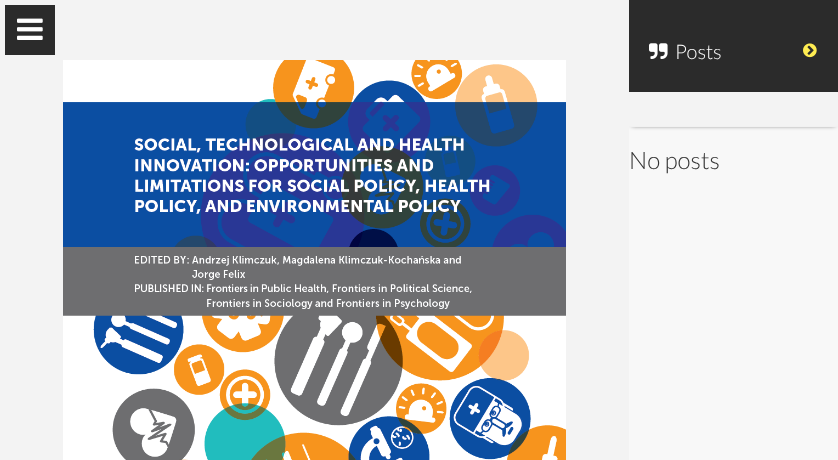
<!DOCTYPE html>
<meta charset="utf-8">
<style>body { margin: 0 } canvas { display: block }</style>
<canvas id="canvas" width="838" height="460"></canvas>
<img id="img1" src="images/1.png" hidden>
<img id="img2" src="images/2.png" hidden>
<img id="img3" src="images/3.png" hidden>
<img id="img4" src="images/4.png" hidden>
<script>
window.onload = function () {
    const canvas = document.getElementById('canvas');
    const context = canvas.getContext('2d');
    context.miterLimit = 4;
    context.fontKerning = 'normal';

    context.fillStyle = 'rgb(243, 243, 243)';
    context.fillRect(0, 0, 838, 460);
    context.fillStyle = 'rgb(43, 43, 43)';
    context.fillRect(5, 5, 50, 50);
    context.drawImage(document.getElementById('img1'), 17, 18, 26, 22);
    context.drawImage(document.getElementById('img2'), 63, 60, 503, 400);
    context.fillStyle = 'rgb(248, 248, 248)';
    context.fillRect(629, 127, 209, 333);
    context.fillStyle = 'rgb(43, 43, 43)';
    context.fillRect(629, 0, 209, 92);
    context.drawImage(document.getElementById('img3'), 649, 43, 19, 16);
    context.save();
    context.beginPath();
    context.rect(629, 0, 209, 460);
    context.clip();
    context.fillStyle = 'rgb(34, 34, 34)';
    context.filter = 'blur(2.5px)';
    context.beginPath();
    context.rect(632, 96, 203, 29);
    context.fill();
    context.filter = 'none';
    context.restore();
    context.fillStyle = 'rgb(243, 243, 243)';
    context.fillRect(629, 92, 209, 34);
    context.fillStyle = 'rgb(241, 241, 241)';
    context.fillRect(629, 126, 209, 1);
    context.drawImage(document.getElementById('img4'), 803, 43, 14, 15);
    context.font = '300 20px Lato';
    context.fillStyle = 'rgb(255, 255, 255)';
    context.fillText('Posts', 675, 59);
    context.font = '300 24px Lato';
    context.fillStyle = 'rgb(51, 51, 51)';
    context.fillText('No posts', 629, 169);
};
</script>
